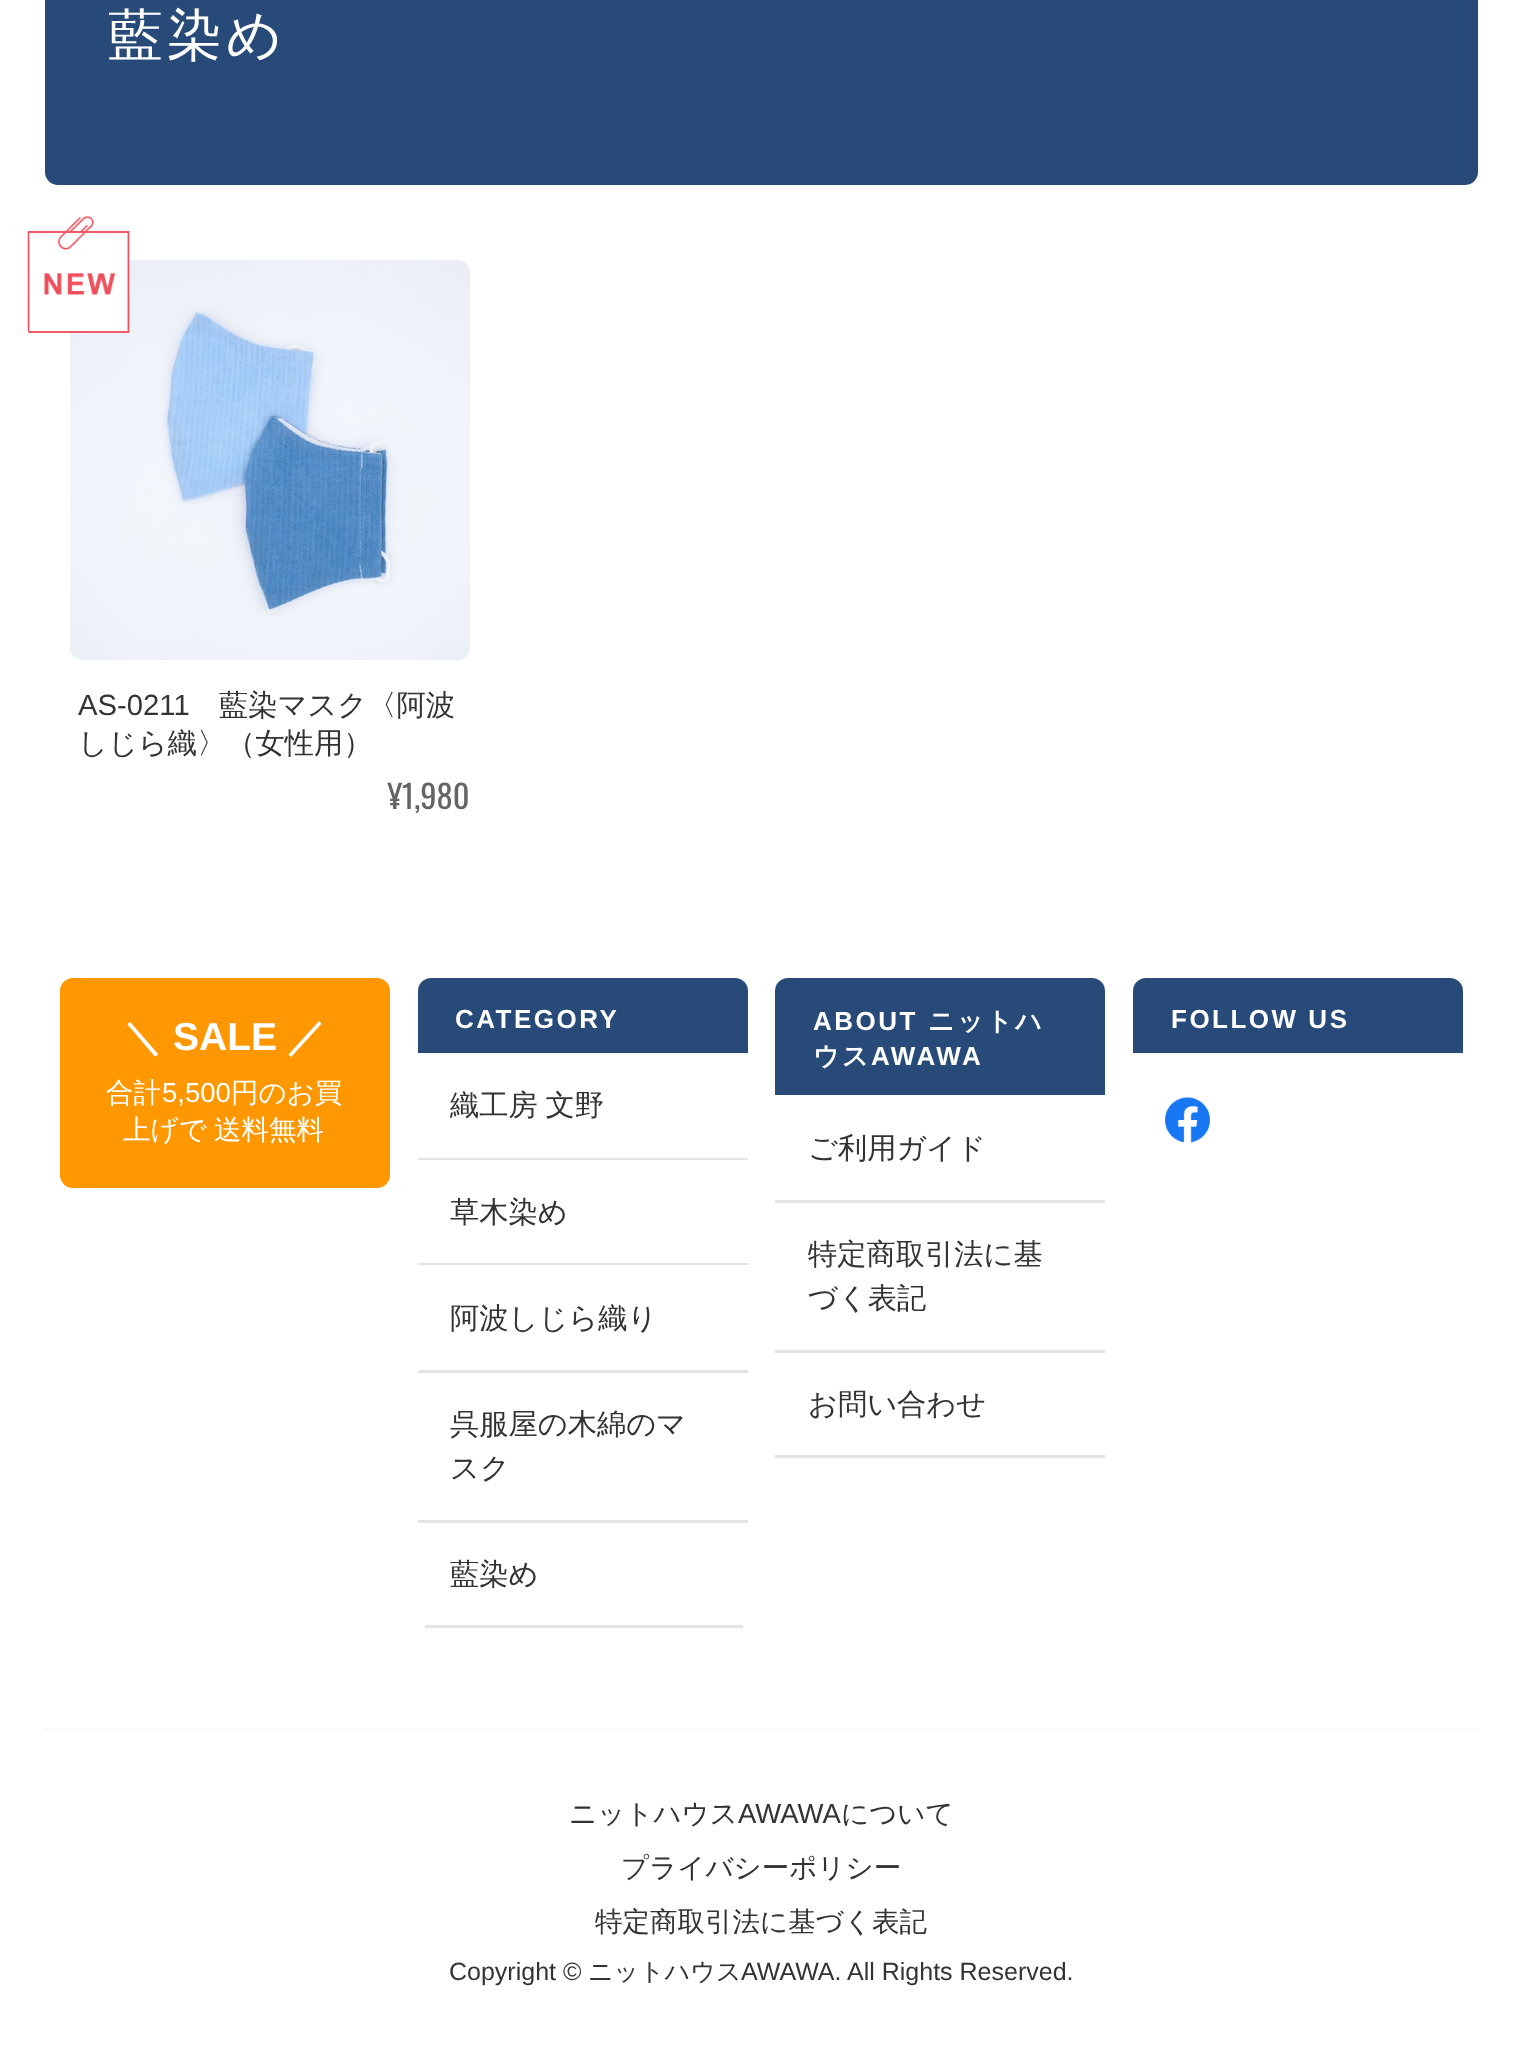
<!DOCTYPE html>
<meta charset="utf-8">
<style>body { margin: 0 } canvas { display: block }</style>
<canvas id="canvas" width="1522" height="2063"></canvas>
<img id="img1" src="images/2.png" hidden>
<img id="img2" src="images/1.png" hidden>
<img id="img3" src="images/3.png" hidden>
<script>
window.onload = function () {
    const canvas = document.getElementById('canvas');
    const context = canvas.getContext('2d');
    context.miterLimit = 4;
    context.fontKerning = 'normal';

    context.fillStyle = 'rgb(255, 255, 255)';
    context.fillRect(0, 0, 1522, 2063);
    context.fillStyle = 'rgb(39, 74, 120)';
    context.beginPath();
    context.roundRect(45, -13, 1433, 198, 13);
    context.fill();
    context.drawImage(document.getElementById('img1'), 70, 260, 400, 400);
    context.drawImage(document.getElementById('img2'), 27, 216, 103, 117);
    context.fillStyle = 'rgb(255, 152, 0)';
    context.beginPath();
    context.roundRect(60, 978, 330, 210, 13);
    context.fill();
    context.fillStyle = 'rgb(39, 74, 120)';
    context.beginPath();
    context.roundRect(418, 978, 330, 75, [13, 13, 0, 0]);
    context.fill();
    context.fillStyle = 'rgb(228, 228, 228)';
    context.fillRect(418, 1158, 330, 2);
    context.fillRect(418, 1263, 330, 2);
    context.fillRect(418, 1370, 330, 3);
    context.fillRect(418, 1520, 330, 3);
    context.fillRect(425, 1625, 318, 3);
    context.fillStyle = 'rgb(39, 74, 120)';
    context.beginPath();
    context.roundRect(775, 978, 330, 117, [13, 13, 0, 0]);
    context.fill();
    context.fillStyle = 'rgb(228, 228, 228)';
    context.fillRect(775, 1200, 330, 3);
    context.fillRect(775, 1350, 330, 3);
    context.fillRect(775, 1455, 330, 3);
    context.fillStyle = 'rgb(39, 74, 120)';
    context.beginPath();
    context.roundRect(1133, 978, 330, 75, [13, 13, 0, 0]);
    context.fill();
    context.drawImage(document.getElementById('img3'), 1165, 1097, 45, 46);
    context.fillStyle = 'rgb(251, 250, 250)';
    context.fillRect(45, 1728, 1433, 3);
    context.letterSpacing = '4px';
    context.font = '500 55px WenQuanYi Zen Hei';
    context.fillStyle = 'rgb(255, 255, 255)';
    context.fillText('藍染め', 108, 54);
    context.letterSpacing = '0px';
    context.font = '29.25px Liberation Sans';
    context.fillStyle = 'rgb(51, 51, 51)';
    context.fillText('AS-0211', 78, 715);
    context.font = '500 29.25px WenQuanYi Zen Hei';
    context.fillText('藍染マスク〈阿波', 219, 715);
    context.fillText('しじら織〉（女性用）', 78, 753);
    context.font = '32.5px Oswald';
    context.fillStyle = 'rgb(102, 101, 101)';
    context.fillText('¥1,980', 387, 809);
    context.font = 'bold 39px WenQuanYi Zen Hei';
    context.fillStyle = 'rgb(255, 255, 255)';
    context.fillText('＼', 123, 1050);
    context.font = 'bold 39px Liberation Sans';
    context.fillText('SALE', 173, 1050);
    context.font = 'bold 39px WenQuanYi Zen Hei';
    context.fillText('／', 287, 1050);
    context.font = '500 27.5px WenQuanYi Zen Hei';
    context.fillText('合計', 106, 1102);
    context.font = '27.5px Liberation Sans';
    context.fillText('5,500', 162, 1102);
    context.font = '500 27.5px WenQuanYi Zen Hei';
    context.fillText('円のお買', 231, 1102);
    context.wordSpacing = '-1px';
    context.fillText('上げで 送料無料', 123, 1139);
    context.letterSpacing = '2.5px';
    context.wordSpacing = '0px';
    context.font = 'bold 26px Liberation Sans';
    context.fillText('CATEGORY', 455, 1028);
    context.letterSpacing = '0px';
    context.wordSpacing = '-1px';
    context.font = '500 29.25px WenQuanYi Zen Hei';
    context.fillStyle = 'rgb(51, 51, 51)';
    context.fillText('織工房 文野', 450, 1115);
    context.wordSpacing = '0px';
    context.fillText('草木染め', 450, 1222);
    context.fillText('阿波しじら織り', 450, 1328);
    context.fillText('呉服屋の木綿のマ', 450, 1434);
    context.fillText('スク', 450, 1478);
    context.fillText('藍染め', 450, 1584);
    context.letterSpacing = '2.5px';
    context.font = 'bold 26px Liberation Sans';
    context.fillStyle = 'rgb(255, 255, 255)';
    context.fillText('ABOUT', 813, 1030);
    context.font = 'bold 26px WenQuanYi Zen Hei';
    context.fillText('ニットハ', 928, 1030);
    context.fillText('ウス', 813, 1065);
    context.font = 'bold 26px Liberation Sans';
    context.fillText('AWAWA', 871, 1065);
    context.letterSpacing = '0px';
    context.font = '500 29.25px WenQuanYi Zen Hei';
    context.fillStyle = 'rgb(51, 51, 51)';
    context.fillText('ご利用ガイド', 808, 1158);
    context.fillText('特定商取引法に基', 808, 1264);
    context.fillText('づく表記', 808, 1308);
    context.fillText('お問い合わせ', 808, 1414);
    context.letterSpacing = '2.5px';
    context.font = 'bold 26px Liberation Sans';
    context.fillStyle = 'rgb(255, 255, 255)';
    context.fillText('FOLLOW US', 1171, 1028);
    context.letterSpacing = '0px';
    context.font = '500 27.5px WenQuanYi Zen Hei';
    context.fillStyle = 'rgb(51, 51, 51)';
    context.fillText('ニットハウス', 569, 1823);
    context.font = '27.5px Liberation Sans';
    context.fillText('AWAWA', 738, 1823);
    context.font = '500 27.5px WenQuanYi Zen Hei';
    context.fillText('について', 841, 1823);
    context.fillText('プライバシーポリシー', 621, 1877);
    context.fillText('特定商取引法に基づく表記', 595, 1931);
    context.font = '25px Liberation Sans';
    context.fillText('Copyright ©', 449, 1980);
    context.font = '500 25px WenQuanYi Zen Hei';
    context.fillText('ニットハウス', 588, 1980);
    context.font = '25px Liberation Sans';
    context.fillText('AWAWA. All Rights Reserved.', 741, 1980);
};
</script>
